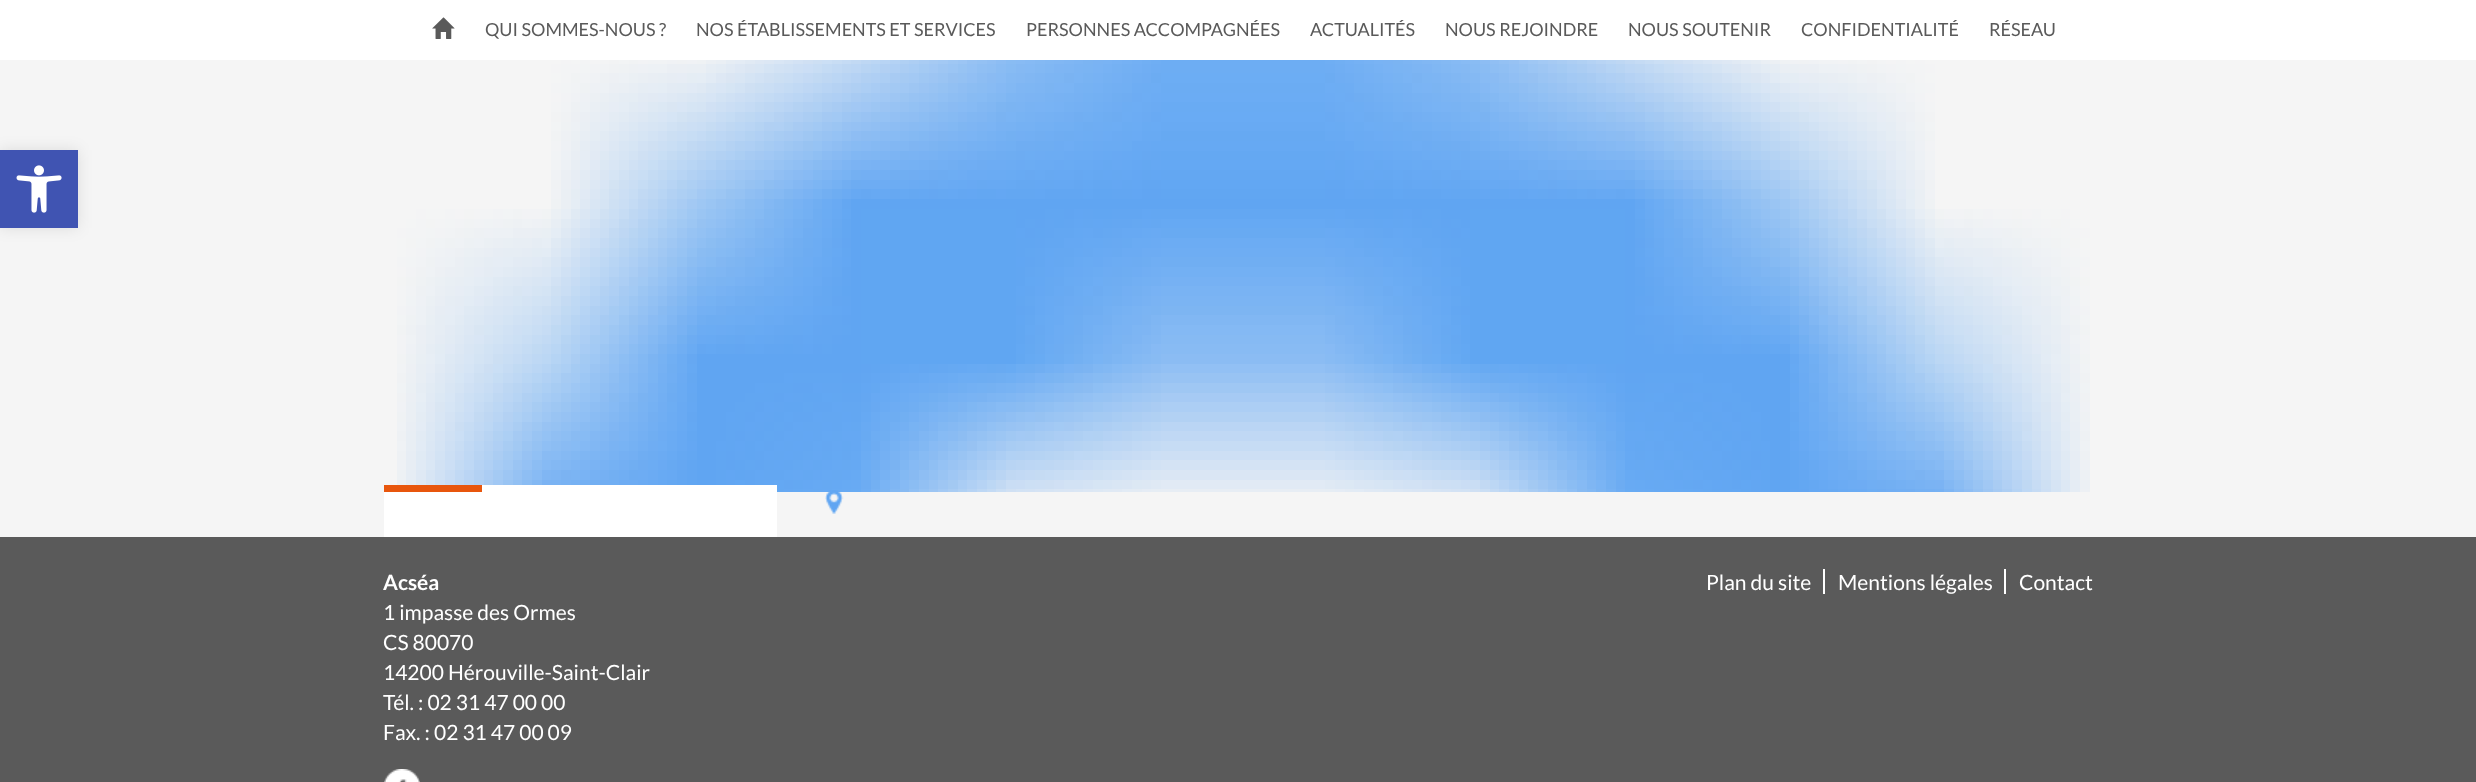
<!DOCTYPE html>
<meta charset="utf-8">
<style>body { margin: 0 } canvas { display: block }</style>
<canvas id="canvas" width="2476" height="782"></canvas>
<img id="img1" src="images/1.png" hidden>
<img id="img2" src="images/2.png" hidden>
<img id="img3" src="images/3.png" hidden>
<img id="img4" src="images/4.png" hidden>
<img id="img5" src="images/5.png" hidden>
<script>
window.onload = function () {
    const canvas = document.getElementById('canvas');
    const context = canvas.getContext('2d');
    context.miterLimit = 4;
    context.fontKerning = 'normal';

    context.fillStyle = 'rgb(245, 245, 245)';
    context.fillRect(0, 0, 2476, 782);
    context.fillStyle = 'rgb(255, 255, 255)';
    context.fillRect(0, 0, 2476, 60);
    context.drawImage(document.getElementById('img1'), 432, 17, 23, 22);
    context.fillStyle = 'rgba(0, 0, 0, 0.1)';
    context.filter = 'blur(7.5px)';
    context.beginPath();
    context.rect(0, 150, 78, 78);
    context.fill();
    context.filter = 'none';
    context.fillStyle = 'rgb(64, 84, 178)';
    context.fillRect(0, 150, 78, 78);
    context.drawImage(document.getElementById('img2'), 16, 165, 46, 48);
    context.drawImage(document.getElementById('img3'), 397, 60, 1693, 432);
    context.fillStyle = 'rgb(255, 255, 255)';
    context.fillRect(384, 485, 393, 52);
    context.fillStyle = 'rgb(232, 86, 13)';
    context.fillRect(384, 485, 98, 7);
    context.drawImage(document.getElementById('img4'), 825, 490, 19, 24);
    context.fillStyle = 'rgb(90, 90, 90)';
    context.fillRect(0, 537, 2476, 245);
    context.drawImage(document.getElementById('img5'), 384, 769, 36, 13);
    context.fillStyle = 'rgb(255, 255, 255)';
    context.fillRect(1823, 569, 2, 25);
    context.fillRect(2004, 569, 2, 25);
    context.font = '18px Lato';
    context.fillStyle = 'rgb(90, 90, 90)';
    context.fillText('QUI SOMMES-NOUS ?', 485, 36);
    context.fillText('NOS ÉTABLISSEMENTS ET SERVICES', 696, 36);
    context.fillText('PERSONNES ACCOMPAGNÉES', 1026, 36);
    context.fillText('ACTUALITÉS', 1310, 36);
    context.fillText('NOUS REJOINDRE', 1445, 36);
    context.fillText('NOUS SOUTENIR', 1628, 36);
    context.fillText('CONFIDENTIALITÉ', 1801, 36);
    context.fillText('RÉSEAU', 1989, 36);
    context.font = 'bold 21px Lato';
    context.fillStyle = 'rgb(255, 255, 255)';
    context.fillText('Acséa', 383, 590);
    context.font = '21px Lato';
    context.fillText('1 impasse des Ormes', 383, 620);
    context.fillText('CS 80070', 383, 650);
    context.fillText('14200 Hérouville-Saint-Clair', 383, 680);
    context.fillText('Tél. : 02 31 47 00 00', 383, 710);
    context.fillText('Fax. : 02 31 47 00 09', 383, 740);
    context.fillText('Plan du site', 1706, 590);
    context.fillText('Mentions légales', 1838, 590);
    context.fillText('Contact', 2019, 590);
};
</script>
